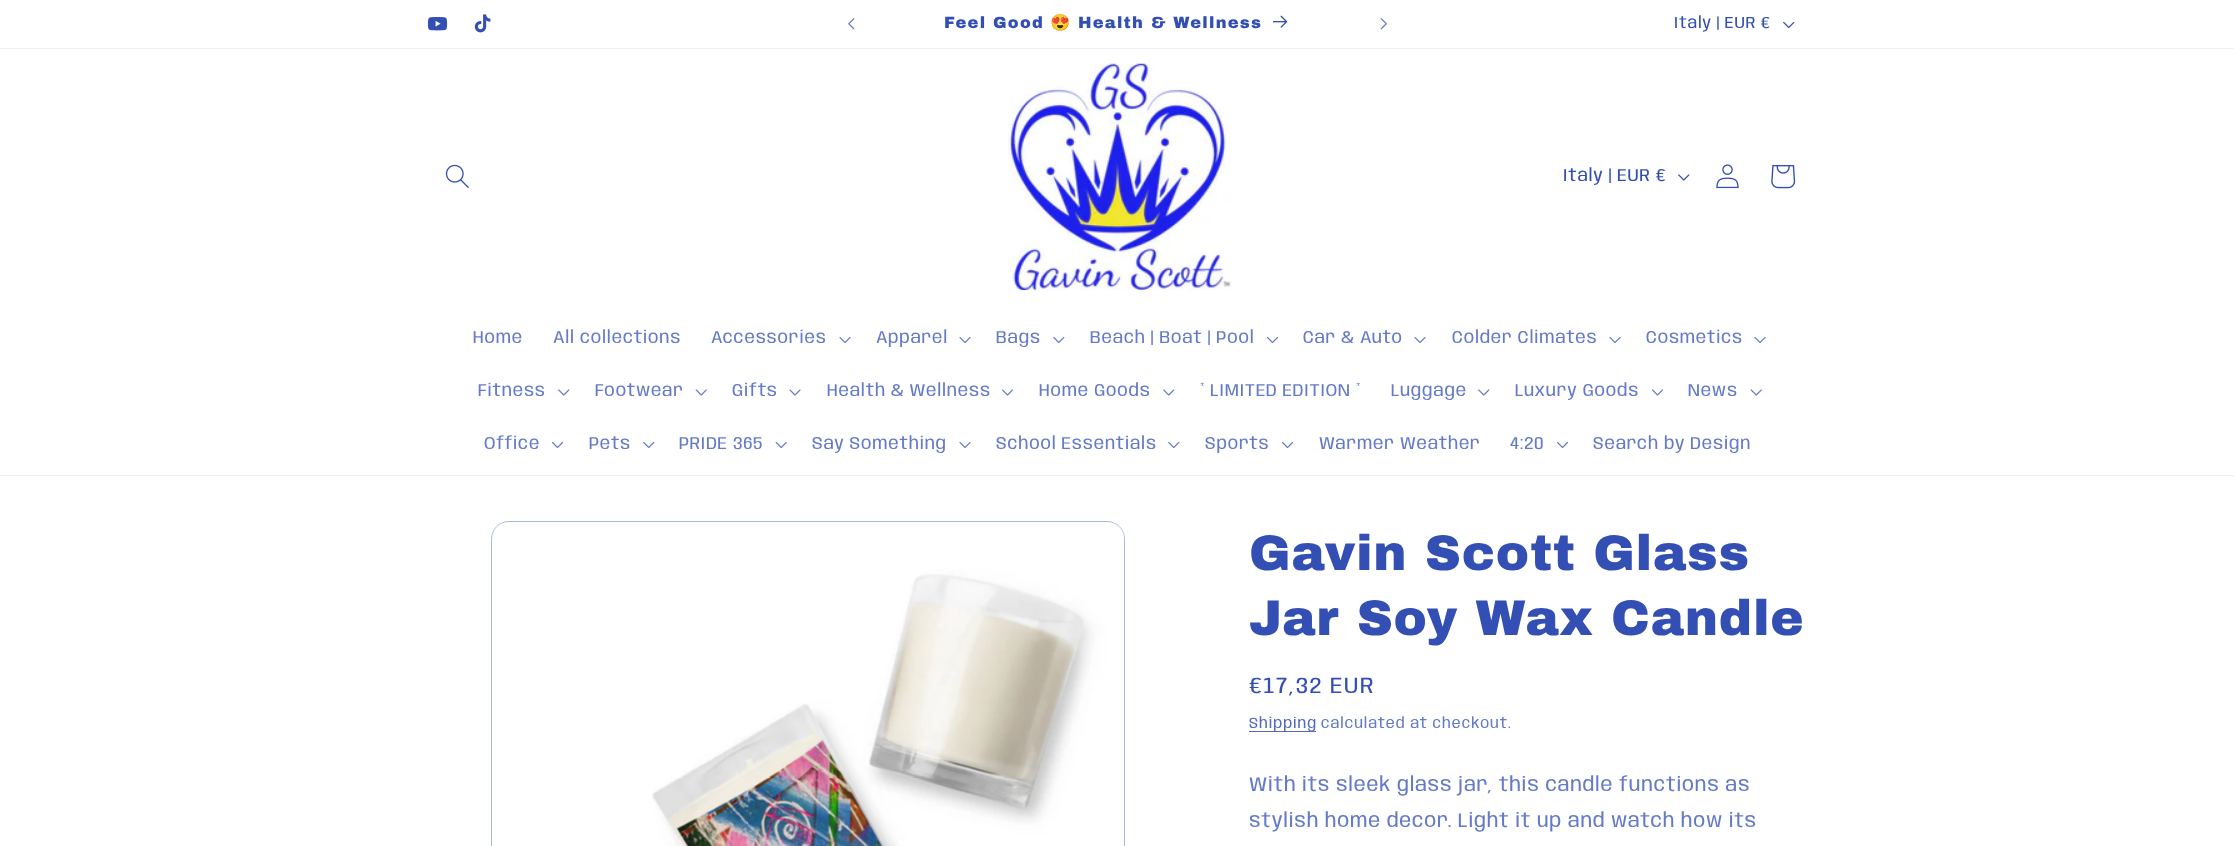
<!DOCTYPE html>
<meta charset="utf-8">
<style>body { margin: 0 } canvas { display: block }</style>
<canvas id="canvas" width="2234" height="846"></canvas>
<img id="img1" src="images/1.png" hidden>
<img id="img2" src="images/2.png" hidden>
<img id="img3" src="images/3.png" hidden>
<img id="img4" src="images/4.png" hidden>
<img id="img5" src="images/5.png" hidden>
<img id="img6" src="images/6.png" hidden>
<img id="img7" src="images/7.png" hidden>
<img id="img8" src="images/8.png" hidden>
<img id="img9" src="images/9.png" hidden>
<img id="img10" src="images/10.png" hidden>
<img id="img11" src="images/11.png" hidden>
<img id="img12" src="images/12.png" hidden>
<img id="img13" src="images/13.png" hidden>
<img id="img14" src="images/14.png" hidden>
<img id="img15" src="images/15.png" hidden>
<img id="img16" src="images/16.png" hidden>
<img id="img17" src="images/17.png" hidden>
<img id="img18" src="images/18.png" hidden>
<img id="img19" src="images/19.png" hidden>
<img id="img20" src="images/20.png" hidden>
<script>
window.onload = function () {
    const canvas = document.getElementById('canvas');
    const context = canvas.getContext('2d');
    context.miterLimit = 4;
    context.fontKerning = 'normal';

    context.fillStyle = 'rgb(255, 255, 255)';
    context.fillRect(0, 0, 2234, 846);
    context.fillStyle = 'rgb(239, 241, 249)';
    context.fillRect(0, 48, 2234, 1);
    context.drawImage(document.getElementById('img1'), 427, 17, 21, 14);
    context.drawImage(document.getElementById('img2'), 474, 14, 17, 19);
    context.drawImage(document.getElementById('img3'), 848, 18, 7, 12);
    context.drawImage(document.getElementById('img4'), 1273, 15, 15, 13);
    context.drawImage(document.getElementById('img5'), 1380, 18, 7, 12);
    context.drawImage(document.getElementById('img6'), 1783, 21, 12, 8);
    context.fillRect(0, 475, 2234, 1);
    context.drawImage(document.getElementById('img7'), 445, 164, 24, 24);
    context.drawImage(document.getElementById('img8'), 1008, 63, 223, 227);
    context.drawImage(document.getElementById('img9'), 1678, 174, 12, 7);
    context.drawImage(document.getElementById('img10'), 1716, 164, 23, 25);
    context.drawImage(document.getElementById('img11'), 1771, 165, 25, 24);
    context.drawImage(document.getElementById('img12'), 839, 337, 12, 6);
    context.drawImage(document.getElementById('img12'), 959, 337, 12, 6);
    context.drawImage(document.getElementById('img13'), 1053, 336, 12, 8);
    context.drawImage(document.getElementById('img14'), 1266, 336, 13, 8);
    context.drawImage(document.getElementById('img12'), 1414, 337, 12, 6);
    context.drawImage(document.getElementById('img12'), 1609, 337, 12, 6);
    context.drawImage(document.getElementById('img12'), 1754, 337, 12, 6);
    context.drawImage(document.getElementById('img15'), 558, 389, 12, 7);
    context.drawImage(document.getElementById('img16'), 695, 389, 12, 7);
    context.drawImage(document.getElementById('img17'), 789, 389, 12, 7);
    context.drawImage(document.getElementById('img18'), 1002, 389, 11, 7);
    context.drawImage(document.getElementById('img15'), 1163, 389, 12, 7);
    context.drawImage(document.getElementById('img15'), 1478, 389, 12, 7);
    context.drawImage(document.getElementById('img18'), 1652, 389, 11, 7);
    context.drawImage(document.getElementById('img16'), 1750, 389, 12, 7);
    context.drawImage(document.getElementById('img14'), 551, 441, 13, 8);
    context.drawImage(document.getElementById('img13'), 643, 441, 12, 8);
    context.drawImage(document.getElementById('img19'), 775, 441, 12, 8);
    context.drawImage(document.getElementById('img12'), 959, 442, 12, 6);
    context.drawImage(document.getElementById('img13'), 1168, 441, 12, 8);
    context.drawImage(document.getElementById('img14'), 1281, 441, 13, 8);
    context.drawImage(document.getElementById('img14'), 1556, 441, 13, 8);
    context.beginPath();
    context.roundRect(491.5, 521.5, 633, 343, 17.5);
    context.strokeStyle = 'rgb(173, 185, 225)';
    context.stroke();
    context.drawImage(document.getElementById('img20'), 493, 523, 631, 323);
    context.fillStyle = 'rgb(82, 105, 191)';
    context.fillRect(1249, 731, 67, 1);
    context.letterSpacing = '1.25px';
    context.font = '16.25px Archivo Black';
    context.fillStyle = 'rgb(51, 79, 180)';
    context.fillText('Feel Good', 944, 28);
    context.font = '16.25px Noto Color Emoji';
    context.fillText('😍', 1050, 28);
    context.font = '16.25px Archivo Black';
    context.fillText('Health & Wellness', 1078, 28);
    context.letterSpacing = '0.75px';
    context.font = '16.25px Anybody';
    context.fillText('Italy | EUR €', 1674, 28);
    context.font = '17.5px Anybody';
    context.fillText('Italy | EUR €', 1563, 181);
    context.fillStyle = 'rgb(102, 123, 199)';
    context.fillText('Home', 473, 343);
    context.fillText('All collections', 553, 343);
    context.fillText('Accessories', 711, 343);
    context.fillText('Apparel', 876, 343);
    context.fillText('Bags', 996, 343);
    context.fillText('Beach | Boat | Pool', 1090, 343);
    context.fillText('Car & Auto', 1303, 343);
    context.fillText('Colder Climates', 1452, 343);
    context.fillText('Cosmetics', 1646, 343);
    context.fillText('Fitness', 478, 396);
    context.fillText('Footwear', 595, 396);
    context.fillText('Gifts', 732, 396);
    context.fillText('Health & Wellness', 827, 396);
    context.fillText('Home Goods', 1039, 396);
    context.fillText('* LIMITED EDITION *', 1200, 396);
    context.fillText('Luggage', 1391, 396);
    context.fillText('Luxury Goods', 1515, 396);
    context.fillText('News', 1688, 396);
    context.fillText('Office', 484, 449);
    context.fillText('Pets', 589, 449);
    context.fillText('PRIDE 365', 679, 449);
    context.fillText('Say Something', 812, 449);
    context.fillText('School Essentials', 996, 449);
    context.fillText('Sports', 1205, 449);
    context.fillText('Warmer Weather', 1319, 449);
    context.fillText('4:20', 1510, 449);
    context.fillText('Search by Design', 1593, 449);
    context.font = '50px Archivo Black';
    context.fillStyle = 'rgb(51, 79, 180)';
    context.fillText('Gavin Scott Glass', 1249, 570);
    context.fillText('Jar Soy Wax Candle', 1249, 635);
    context.letterSpacing = '1.6px';
    context.font = '22.5px Anybody';
    context.fillText('€17,32 EUR', 1249, 693);
    context.letterSpacing = '0.9px';
    context.font = '15px Anybody';
    context.fillStyle = 'rgb(81, 105, 191)';
    context.fillText('Shipping', 1249, 728);
    context.fillStyle = 'rgb(102, 123, 199)';
    context.fillText('calculated at checkout.', 1321, 728);
    context.letterSpacing = '0.75px';
    context.font = '20px Anybody';
    context.fillText('With its sleek glass jar, this candle functions as', 1249, 791);
    context.fillText('stylish home decor. Light it up and watch how its', 1249, 827);
};
</script>
